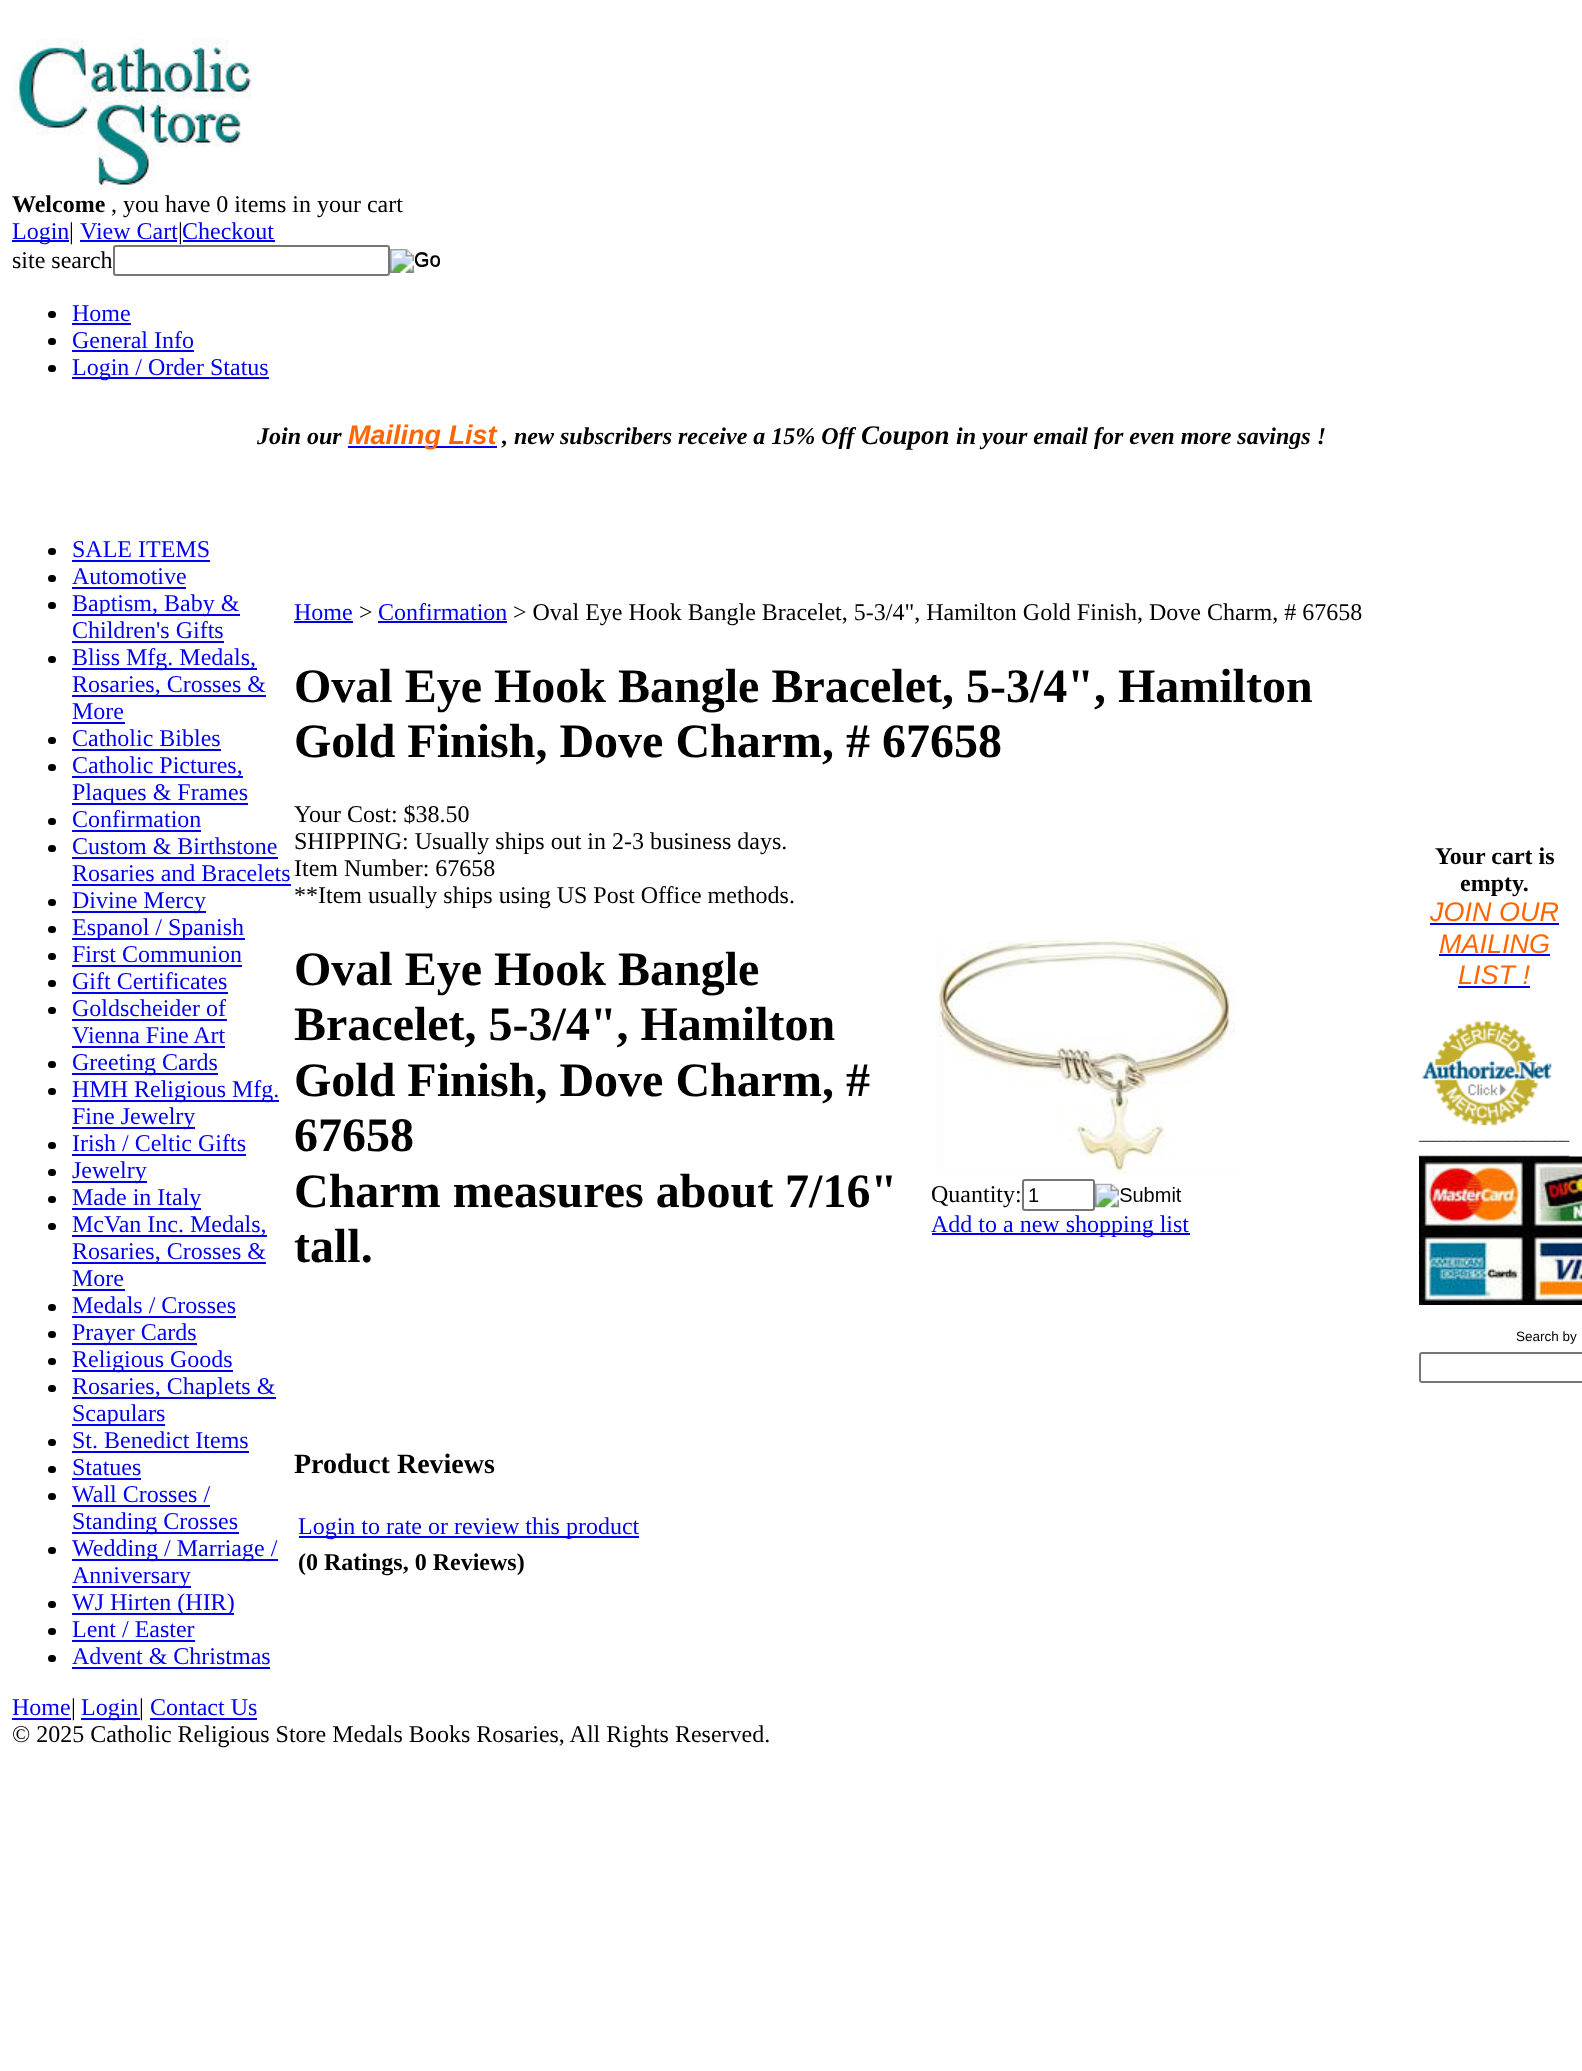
<!DOCTYPE html>
<meta charset="utf-8">
<style>body { margin: 0 } canvas { display: block }</style>
<canvas id="canvas" width="1582" height="2071"></canvas>
<img id="img1" src="images/1.png" hidden>
<img id="img2" src="images/2.png" hidden>
<img id="img3" src="images/3.png" hidden>
<img id="img4" src="images/4.png" hidden>
<img id="img5" src="images/5.png" hidden>
<img id="img6" src="images/6.png" hidden>
<script>
window.onload = function () {
    const canvas = document.getElementById('canvas');
    const context = canvas.getContext('2d');
    context.miterLimit = 4;
    context.fontKerning = 'normal';

    context.fillStyle = 'rgb(255, 255, 255)';
    context.fillRect(0, 0, 1582, 2071);
    context.drawImage(document.getElementById('img1'), 12, 39, 240, 151);
    context.fillStyle = 'rgb(0, 0, 238)';
    context.fillRect(12, 240, 57, 2);
    context.fillRect(80, 240, 97, 2);
    context.fillRect(183, 240, 92, 2);
    context.beginPath();
    context.roundRect(114, 246, 275, 29, 2);
    context.strokeStyle = 'rgb(118, 118, 118)';
    context.lineWidth = 2;
    context.stroke();
    context.drawImage(document.getElementById('img2'), 390, 249, 50, 24);
    context.fillStyle = 'rgb(0, 0, 0)';
    context.beginPath();
    context.roundRect(48, 311, 8, 7, 3.5);
    context.fill();
    context.fillStyle = 'rgb(0, 0, 238)';
    context.fillRect(72, 323, 59, 2);
    context.fillStyle = 'rgb(0, 0, 0)';
    context.beginPath();
    context.roundRect(48, 338, 8, 7, 3.5);
    context.fill();
    context.fillStyle = 'rgb(0, 0, 238)';
    context.fillRect(72, 350, 122, 2);
    context.fillStyle = 'rgb(0, 0, 0)';
    context.beginPath();
    context.roundRect(48, 365, 8, 7, 3.5);
    context.fill();
    context.fillStyle = 'rgb(0, 0, 238)';
    context.fillRect(72, 377, 197, 2);
    context.fillRect(348, 446, 149, 2);
    context.fillStyle = 'rgb(0, 0, 0)';
    context.beginPath();
    context.roundRect(48, 548, 8, 7, 3.5);
    context.fill();
    context.fillStyle = 'rgb(0, 0, 238)';
    context.fillRect(72, 560, 138, 2);
    context.fillStyle = 'rgb(0, 0, 0)';
    context.beginPath();
    context.roundRect(48, 575, 8, 7, 3.5);
    context.fill();
    context.fillStyle = 'rgb(0, 0, 238)';
    context.fillRect(72, 587, 114, 2);
    context.fillStyle = 'rgb(0, 0, 0)';
    context.beginPath();
    context.roundRect(48, 602, 8, 7, 3.5);
    context.fill();
    context.fillStyle = 'rgb(0, 0, 238)';
    context.fillRect(72, 614, 168, 2);
    context.fillRect(72, 641, 152, 2);
    context.fillStyle = 'rgb(0, 0, 0)';
    context.beginPath();
    context.roundRect(48, 656, 8, 7, 3.5);
    context.fill();
    context.fillStyle = 'rgb(0, 0, 238)';
    context.fillRect(72, 668, 185, 2);
    context.fillRect(72, 695, 194, 2);
    context.fillRect(72, 722, 53, 2);
    context.fillStyle = 'rgb(0, 0, 0)';
    context.beginPath();
    context.roundRect(48, 737, 8, 7, 3.5);
    context.fill();
    context.fillStyle = 'rgb(0, 0, 238)';
    context.fillRect(72, 749, 149, 2);
    context.fillStyle = 'rgb(0, 0, 0)';
    context.beginPath();
    context.roundRect(48, 764, 8, 7, 3.5);
    context.fill();
    context.fillStyle = 'rgb(0, 0, 238)';
    context.fillRect(72, 776, 171, 2);
    context.fillRect(72, 803, 176, 2);
    context.fillStyle = 'rgb(0, 0, 0)';
    context.beginPath();
    context.roundRect(48, 818, 8, 7, 3.5);
    context.fill();
    context.fillStyle = 'rgb(0, 0, 238)';
    context.fillRect(72, 830, 129, 2);
    context.fillStyle = 'rgb(0, 0, 0)';
    context.beginPath();
    context.roundRect(48, 845, 8, 7, 3.5);
    context.fill();
    context.fillStyle = 'rgb(0, 0, 238)';
    context.fillRect(72, 857, 206, 2);
    context.fillRect(72, 884, 219, 2);
    context.fillStyle = 'rgb(0, 0, 0)';
    context.beginPath();
    context.roundRect(48, 899, 8, 7, 3.5);
    context.fill();
    context.fillStyle = 'rgb(0, 0, 238)';
    context.fillRect(72, 911, 134, 2);
    context.fillStyle = 'rgb(0, 0, 0)';
    context.beginPath();
    context.roundRect(48, 926, 8, 7, 3.5);
    context.fill();
    context.fillStyle = 'rgb(0, 0, 238)';
    context.fillRect(72, 938, 173, 2);
    context.fillStyle = 'rgb(0, 0, 0)';
    context.beginPath();
    context.roundRect(48, 953, 8, 7, 3.5);
    context.fill();
    context.fillStyle = 'rgb(0, 0, 238)';
    context.fillRect(72, 965, 170, 2);
    context.fillStyle = 'rgb(0, 0, 0)';
    context.beginPath();
    context.roundRect(48, 980, 8, 7, 3.5);
    context.fill();
    context.fillStyle = 'rgb(0, 0, 238)';
    context.fillRect(72, 992, 156, 2);
    context.fillStyle = 'rgb(0, 0, 0)';
    context.beginPath();
    context.roundRect(48, 1007, 8, 7, 3.5);
    context.fill();
    context.fillStyle = 'rgb(0, 0, 238)';
    context.fillRect(72, 1019, 155, 2);
    context.fillRect(72, 1046, 153, 2);
    context.fillStyle = 'rgb(0, 0, 0)';
    context.beginPath();
    context.roundRect(48, 1061, 8, 7, 3.5);
    context.fill();
    context.fillStyle = 'rgb(0, 0, 238)';
    context.fillRect(72, 1073, 146, 2);
    context.fillStyle = 'rgb(0, 0, 0)';
    context.beginPath();
    context.roundRect(48, 1088, 8, 7, 3.5);
    context.fill();
    context.fillStyle = 'rgb(0, 0, 238)';
    context.fillRect(72, 1100, 207, 2);
    context.fillRect(72, 1127, 123, 2);
    context.fillStyle = 'rgb(0, 0, 0)';
    context.beginPath();
    context.roundRect(48, 1142, 8, 7, 3.5);
    context.fill();
    context.fillStyle = 'rgb(0, 0, 238)';
    context.fillRect(72, 1154, 174, 2);
    context.fillStyle = 'rgb(0, 0, 0)';
    context.beginPath();
    context.roundRect(48, 1169, 8, 7, 3.5);
    context.fill();
    context.fillStyle = 'rgb(0, 0, 238)';
    context.fillRect(72, 1181, 75, 2);
    context.fillStyle = 'rgb(0, 0, 0)';
    context.beginPath();
    context.roundRect(48, 1196, 8, 7, 3.5);
    context.fill();
    context.fillStyle = 'rgb(0, 0, 238)';
    context.fillRect(72, 1208, 129, 2);
    context.fillStyle = 'rgb(0, 0, 0)';
    context.beginPath();
    context.roundRect(48, 1223, 8, 7, 3.5);
    context.fill();
    context.fillStyle = 'rgb(0, 0, 238)';
    context.fillRect(72, 1235, 195, 2);
    context.fillRect(72, 1262, 194, 2);
    context.fillRect(72, 1289, 53, 2);
    context.fillStyle = 'rgb(0, 0, 0)';
    context.beginPath();
    context.roundRect(48, 1304, 8, 7, 3.5);
    context.fill();
    context.fillStyle = 'rgb(0, 0, 238)';
    context.fillRect(72, 1316, 164, 2);
    context.fillStyle = 'rgb(0, 0, 0)';
    context.beginPath();
    context.roundRect(48, 1331, 8, 7, 3.5);
    context.fill();
    context.fillStyle = 'rgb(0, 0, 238)';
    context.fillRect(72, 1343, 125, 2);
    context.fillStyle = 'rgb(0, 0, 0)';
    context.beginPath();
    context.roundRect(48, 1358, 8, 7, 3.5);
    context.fill();
    context.fillStyle = 'rgb(0, 0, 238)';
    context.fillRect(72, 1370, 161, 2);
    context.fillStyle = 'rgb(0, 0, 0)';
    context.beginPath();
    context.roundRect(48, 1385, 8, 7, 3.5);
    context.fill();
    context.fillStyle = 'rgb(0, 0, 238)';
    context.fillRect(72, 1397, 204, 2);
    context.fillRect(72, 1424, 93, 2);
    context.fillStyle = 'rgb(0, 0, 0)';
    context.beginPath();
    context.roundRect(48, 1439, 8, 7, 3.5);
    context.fill();
    context.fillStyle = 'rgb(0, 0, 238)';
    context.fillRect(72, 1451, 177, 2);
    context.fillStyle = 'rgb(0, 0, 0)';
    context.beginPath();
    context.roundRect(48, 1466, 8, 7, 3.5);
    context.fill();
    context.fillStyle = 'rgb(0, 0, 238)';
    context.fillRect(72, 1478, 69, 2);
    context.fillStyle = 'rgb(0, 0, 0)';
    context.beginPath();
    context.roundRect(48, 1493, 8, 7, 3.5);
    context.fill();
    context.fillStyle = 'rgb(0, 0, 238)';
    context.fillRect(72, 1505, 138, 2);
    context.fillRect(72, 1532, 167, 2);
    context.fillStyle = 'rgb(0, 0, 0)';
    context.beginPath();
    context.roundRect(48, 1547, 8, 7, 3.5);
    context.fill();
    context.fillStyle = 'rgb(0, 0, 238)';
    context.fillRect(72, 1559, 206, 2);
    context.fillRect(72, 1586, 119, 2);
    context.fillStyle = 'rgb(0, 0, 0)';
    context.beginPath();
    context.roundRect(48, 1601, 8, 7, 3.5);
    context.fill();
    context.fillStyle = 'rgb(0, 0, 238)';
    context.fillRect(72, 1613, 162, 2);
    context.fillStyle = 'rgb(0, 0, 0)';
    context.beginPath();
    context.roundRect(48, 1628, 8, 7, 3.5);
    context.fill();
    context.fillStyle = 'rgb(0, 0, 238)';
    context.fillRect(72, 1640, 123, 2);
    context.fillStyle = 'rgb(0, 0, 0)';
    context.beginPath();
    context.roundRect(48, 1655, 8, 7, 3.5);
    context.fill();
    context.fillStyle = 'rgb(0, 0, 238)';
    context.fillRect(72, 1667, 198, 2);
    context.fillRect(294, 621, 59, 2);
    context.fillRect(378, 621, 129, 2);
    context.drawImage(document.getElementById('img3'), 936, 940, 300, 235);
    context.beginPath();
    context.roundRect(1023, 1180, 71, 30, 2);
    context.stroke();
    context.drawImage(document.getElementById('img4'), 1095, 1183, 87, 25);
    context.fillRect(932, 1233, 258, 2);
    context.fillRect(299, 1536, 340, 2);
    context.fillRect(1430, 923, 129, 2);
    context.fillRect(1439, 954, 111, 2);
    context.fillRect(1458, 986, 72, 2);
    context.drawImage(document.getElementById('img5'), 1421, 1021, 131, 105);
    context.beginPath();
    context.roundRect(1420, 1353, 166, 29, 2);
    context.stroke();
    context.fillRect(12, 1718, 59, 2);
    context.fillRect(81, 1718, 59, 2);
    context.fillRect(150, 1718, 107, 2);
    context.font = 'bold 24px Liberation Serif';
    context.fillStyle = 'rgb(0, 0, 0)';
    context.fillText('Welcome', 12, 212);
    context.font = '24px Liberation Serif';
    context.fillText(', you have 0 items in your cart', 111, 212);
    context.fillStyle = 'rgb(0, 0, 238)';
    context.fillText('Login', 12, 239);
    context.fillStyle = 'rgb(0, 0, 0)';
    context.fillText('|', 69, 239);
    context.fillStyle = 'rgb(0, 0, 238)';
    context.fillText('View Cart', 80, 239);
    context.fillStyle = 'rgb(0, 0, 0)';
    context.fillText('|', 178, 239);
    context.fillStyle = 'rgb(0, 0, 238)';
    context.fillText('Checkout', 182, 239);
    context.fillStyle = 'rgb(0, 0, 0)';
    context.fillText('site search', 12, 268);
    context.font = '20px Liberation Sans';
    context.fillText('Go', 414, 266);
    context.font = '24px Liberation Serif';
    context.fillStyle = 'rgb(0, 0, 238)';
    context.fillText('Home', 72, 321);
    context.fillText('General Info', 72, 348);
    context.fillText('Login / Order Status', 72, 375);
    context.font = 'italic bold 24px Liberation Serif';
    context.fillStyle = 'rgb(0, 0, 0)';
    context.fillText('Join our', 257, 444);
    context.font = 'italic bold 27px Liberation Sans';
    context.fillStyle = 'rgb(255, 102, 0)';
    context.fillText('Mailing List', 348, 444);
    context.font = 'italic bold 24px Liberation Serif';
    context.fillStyle = 'rgb(0, 0, 0)';
    context.fillText(', new subscribers receive a 15% Off', 502, 444);
    context.font = 'italic bold 27px Liberation Serif';
    context.fillText('Coupon', 861, 444);
    context.font = 'italic bold 24px Liberation Serif';
    context.fillText('in your email for even more savings !', 956, 444);
    context.font = '24px Liberation Serif';
    context.fillStyle = 'rgb(0, 0, 238)';
    context.fillText('SALE ITEMS', 72, 557);
    context.fillText('Automotive', 72, 584);
    context.fillText('Baptism, Baby &', 72, 611);
    context.fillText('Children\'s Gifts', 72, 638);
    context.fillText('Bliss Mfg. Medals,', 72, 665);
    context.fillText('Rosaries, Crosses &', 72, 692);
    context.fillText('More', 72, 719);
    context.fillText('Catholic Bibles', 72, 746);
    context.fillText('Catholic Pictures,', 72, 773);
    context.fillText('Plaques & Frames', 72, 800);
    context.fillText('Confirmation', 72, 827);
    context.fillText('Custom & Birthstone', 72, 854);
    context.fillText('Rosaries and Bracelets', 72, 881);
    context.fillText('Divine Mercy', 72, 908);
    context.fillText('Espanol / Spanish', 72, 935);
    context.fillText('First Communion', 72, 962);
    context.fillText('Gift Certificates', 72, 989);
    context.fillText('Goldscheider of', 72, 1016);
    context.fillText('Vienna Fine Art', 72, 1043);
    context.fillText('Greeting Cards', 72, 1070);
    context.fillText('HMH Religious Mfg.', 72, 1097);
    context.fillText('Fine Jewelry', 72, 1124);
    context.fillText('Irish / Celtic Gifts', 72, 1151);
    context.fillText('Jewelry', 72, 1178);
    context.fillText('Made in Italy', 72, 1205);
    context.fillText('McVan Inc. Medals,', 72, 1232);
    context.fillText('Rosaries, Crosses &', 72, 1259);
    context.fillText('More', 72, 1286);
    context.fillText('Medals / Crosses', 72, 1313);
    context.fillText('Prayer Cards', 72, 1340);
    context.fillText('Religious Goods', 72, 1367);
    context.fillText('Rosaries, Chaplets &', 72, 1394);
    context.fillText('Scapulars', 72, 1421);
    context.fillText('St. Benedict Items', 72, 1448);
    context.fillText('Statues', 72, 1475);
    context.fillText('Wall Crosses /', 72, 1502);
    context.fillText('Standing Crosses', 72, 1529);
    context.fillText('Wedding / Marriage /', 72, 1556);
    context.fillText('Anniversary', 72, 1583);
    context.fillText('WJ Hirten (HIR)', 72, 1610);
    context.fillText('Lent / Easter', 72, 1637);
    context.fillText('Advent & Christmas', 72, 1664);
    context.fillText('Home', 294, 620);
    context.fillStyle = 'rgb(0, 0, 0)';
    context.fillText('>', 359, 620);
    context.fillStyle = 'rgb(0, 0, 238)';
    context.fillText('Confirmation', 378, 620);
    context.fillStyle = 'rgb(0, 0, 0)';
    context.fillText('> Oval Eye Hook Bangle Bracelet, 5-3/4", Hamilton Gold Finish, Dove Charm, # 67658', 513, 620);
    context.font = 'bold 48px Liberation Serif';
    context.fillText('Oval Eye Hook Bangle Bracelet, 5-3/4", Hamilton', 294, 702);
    context.fillText('Gold Finish, Dove Charm, # 67658', 294, 757);
    context.font = '24px Liberation Serif';
    context.fillText('Your Cost: $38.50', 294, 822);
    context.fillText('SHIPPING: Usually ships out in 2-3 business days.', 294, 849);
    context.fillText('Item Number: 67658', 294, 876);
    context.fillText('**Item usually ships using US Post Office methods.', 294, 903);
    context.font = 'bold 48px Liberation Serif';
    context.fillText('Oval Eye Hook Bangle', 294, 985);
    context.fillText('Bracelet, 5-3/4", Hamilton', 294, 1040);
    context.fillText('Gold Finish, Dove Charm, #', 294, 1096);
    context.fillText('67658', 294, 1151);
    context.fillText('Charm measures about 7/16"', 294, 1207);
    context.fillText('tall.', 294, 1262);
    context.font = '24px Liberation Serif';
    context.fillText('Quantity:', 931, 1202);
    context.font = '20px Liberation Sans';
    context.fillText('1', 1028, 1202);
    context.font = '24px Liberation Serif';
    context.fillStyle = 'rgb(0, 0, 238)';
    context.fillText('Add to a new shopping list', 931, 1232);
    context.font = 'bold 28px Liberation Serif';
    context.fillStyle = 'rgb(0, 0, 0)';
    context.fillText('Product Reviews', 294, 1473);
    context.font = '24px Liberation Serif';
    context.fillStyle = 'rgb(0, 0, 238)';
    context.fillText('Login to rate or review this product', 298, 1534);
    context.font = 'bold 24px Liberation Serif';
    context.fillStyle = 'rgb(0, 0, 0)';
    context.fillText('(0 Ratings, 0 Reviews)', 298, 1570);
    context.fillText('Your cart is', 1435, 864);
    context.fillText('empty.', 1460, 891);
    context.font = 'italic 27px Liberation Sans';
    context.fillStyle = 'rgb(255, 102, 0)';
    context.fillText('JOIN OUR', 1430, 921);
    context.fillText('MAILING', 1439, 953);
    context.fillText('LIST !', 1458, 984);
    context.font = '13.5px Liberation Sans';
    context.fillStyle = 'rgb(0, 0, 0)';
    context.fillText('____________________', 1419, 1139);
    context.fillText('____________________', 1419, 1154);
    context.drawImage(document.getElementById('img6'), 1419, 1156, 163, 149);
    context.fillText('Search by', 1516, 1341);
    context.font = '24px Liberation Serif';
    context.fillStyle = 'rgb(0, 0, 238)';
    context.fillText('Home', 12, 1715);
    context.fillStyle = 'rgb(0, 0, 0)';
    context.fillText('|', 71, 1715);
    context.fillStyle = 'rgb(0, 0, 238)';
    context.fillText('Login', 81, 1715);
    context.fillStyle = 'rgb(0, 0, 0)';
    context.fillText('|', 139, 1715);
    context.fillStyle = 'rgb(0, 0, 238)';
    context.fillText('Contact Us', 150, 1715);
    context.fillStyle = 'rgb(0, 0, 0)';
    context.fillText('© 2025 Catholic Religious Store Medals Books Rosaries, All Rights Reserved.', 12, 1742);
};
</script>
